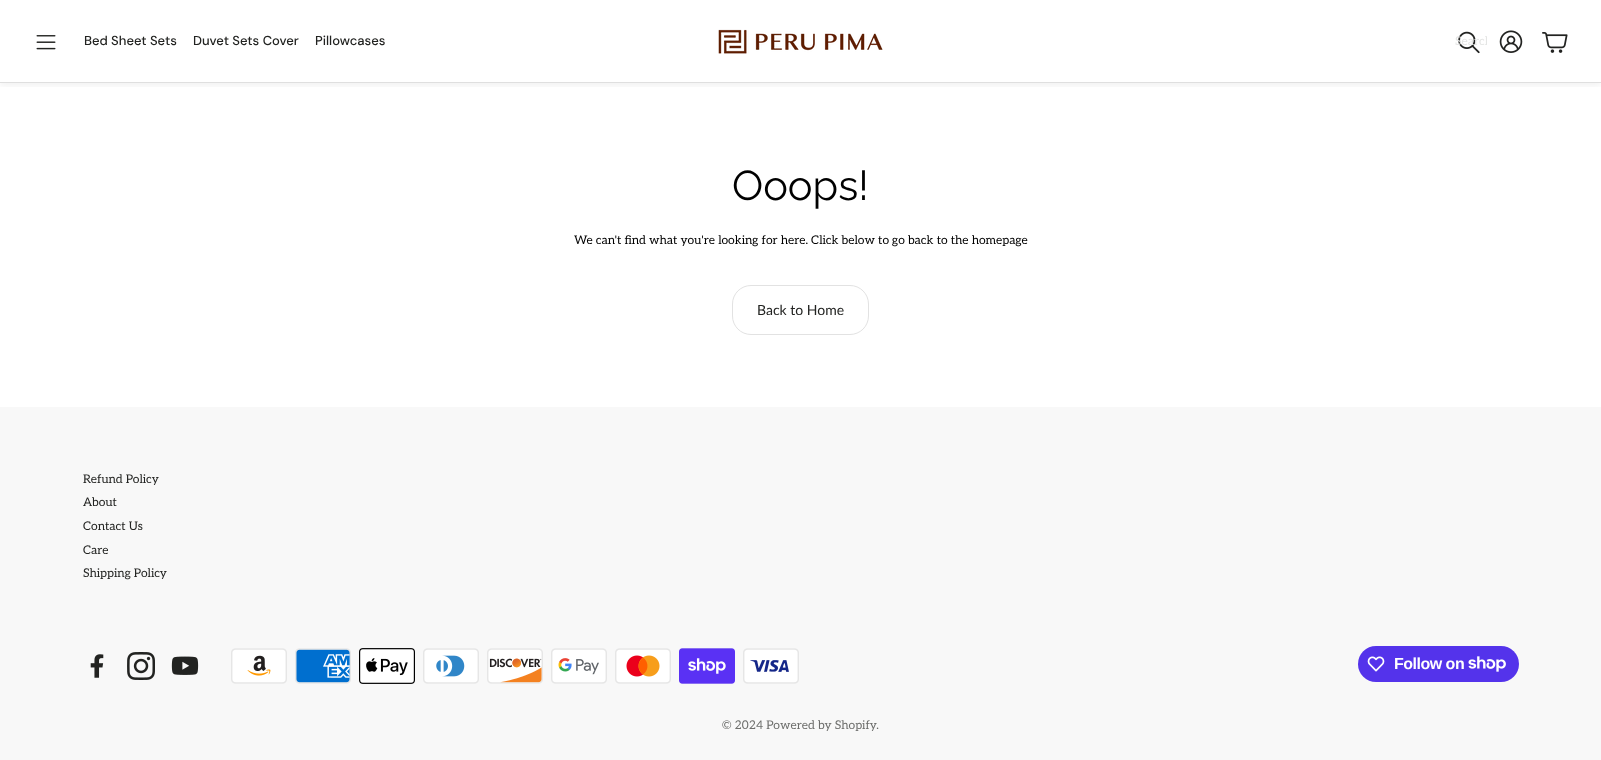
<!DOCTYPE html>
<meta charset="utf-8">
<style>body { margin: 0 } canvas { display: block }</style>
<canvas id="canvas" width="1601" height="760"></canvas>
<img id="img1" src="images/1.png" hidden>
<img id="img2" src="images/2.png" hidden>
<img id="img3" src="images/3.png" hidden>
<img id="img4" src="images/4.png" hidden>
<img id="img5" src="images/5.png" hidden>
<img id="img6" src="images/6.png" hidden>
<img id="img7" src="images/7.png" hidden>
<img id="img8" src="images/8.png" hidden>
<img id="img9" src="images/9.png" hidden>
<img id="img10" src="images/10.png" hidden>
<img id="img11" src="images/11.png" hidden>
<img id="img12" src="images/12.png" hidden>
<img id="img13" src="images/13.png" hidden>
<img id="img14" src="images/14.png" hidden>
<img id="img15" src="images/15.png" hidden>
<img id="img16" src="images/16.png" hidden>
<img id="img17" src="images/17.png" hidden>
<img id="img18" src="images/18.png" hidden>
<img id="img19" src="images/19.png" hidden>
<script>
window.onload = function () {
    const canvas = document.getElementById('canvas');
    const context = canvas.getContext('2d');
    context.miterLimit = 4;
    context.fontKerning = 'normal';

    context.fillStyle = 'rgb(255, 255, 255)';
    context.fillRect(0, 0, 1601, 760);
    context.save();
    context.beginPath();
    context.rect(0, 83, 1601, 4);
    context.clip();
    context.fillStyle = 'rgba(0, 0, 0, 0.05)';
    context.filter = 'blur(3px)';
    context.beginPath();
    context.rect(0, 3, 1601, 83);
    context.fill();
    context.filter = 'none';
    context.restore();
    context.fillStyle = 'rgb(223, 223, 223)';
    context.fillRect(0, 82, 1601, 1);
    context.drawImage(document.getElementById('img1'), 36, 35, 20, 15);
    context.drawImage(document.getElementById('img2'), 718, 29, 165, 25);
    context.drawImage(document.getElementById('img3'), 1458, 31, 22, 23);
    context.drawImage(document.getElementById('img4'), 1499, 30, 24, 23);
    context.drawImage(document.getElementById('img5'), 1542, 32, 26, 21);
    context.beginPath();
    context.roundRect(732.5, 285.5, 136, 49, 18.5);
    context.strokeStyle = 'rgb(226, 226, 226)';
    context.stroke();
    context.fillStyle = 'rgb(248, 248, 248)';
    context.fillRect(0, 407, 1601, 353);
    context.drawImage(document.getElementById('img6'), 90, 654, 14, 24);
    context.drawImage(document.getElementById('img7'), 127, 652, 28, 28);
    context.drawImage(document.getElementById('img8'), 171, 656, 28, 19);
    context.drawImage(document.getElementById('img9'), 231, 648, 56, 36);
    context.drawImage(document.getElementById('img10'), 295, 648, 56, 36);
    context.drawImage(document.getElementById('img11'), 359, 648, 56, 36);
    context.drawImage(document.getElementById('img12'), 423, 648, 56, 36);
    context.drawImage(document.getElementById('img13'), 487, 648, 56, 36);
    context.drawImage(document.getElementById('img14'), 551, 648, 56, 36);
    context.drawImage(document.getElementById('img15'), 615, 648, 56, 36);
    context.drawImage(document.getElementById('img16'), 679, 648, 56, 36);
    context.drawImage(document.getElementById('img17'), 743, 648, 56, 36);
    context.fillStyle = 'rgb(84, 51, 235)';
    context.beginPath();
    context.roundRect(1358, 646, 161, 36, 18);
    context.fill();
    context.drawImage(document.getElementById('img18'), 1367, 656, 18, 16);
    context.drawImage(document.getElementById('img19'), 1468, 656, 38, 16);
    context.font = '500 13px DM Sans';
    context.fillStyle = 'rgb(34, 35, 33)';
    context.fillText('Bed Sheet Sets', 84, 45);
    context.fillText('Duvet Sets Cover', 193, 45);
    context.fillText('Pillowcases', 315, 45);
    context.save();
    context.beginPath();
    context.rect(1455, 34, 32, 15);
    context.clip();
    context.font = '12px Aleo';
    context.fillStyle = 'rgb(228, 229, 228)';
    context.fillText('Search', 1455, 45);
    context.restore();
    context.font = '41.5px Raleway';
    context.fillStyle = 'rgb(0, 0, 0)';
    context.fillText('Ooops!', 732, 200);
    context.font = '12px Aleo';
    context.fillText('We can\'t find what you\'re looking for here. Click below to go back to the homepage', 574, 244);
    context.font = '14px Lato';
    context.fillStyle = 'rgb(34, 35, 33)';
    context.fillText('Back to Home', 757, 315);
    context.font = '12px Aleo';
    context.fillText('Refund Policy', 83, 483);
    context.fillText('About', 83, 506);
    context.fillText('Contact Us', 83, 530);
    context.fillText('Care', 83, 554);
    context.fillText('Shipping Policy', 83, 577);
    context.letterSpacing = '-0.5px';
    context.font = 'bold 16px Liberation Sans';
    context.fillStyle = 'rgb(255, 255, 255)';
    context.fillText('Follow on', 1394, 669);
    context.letterSpacing = '0px';
    context.font = '12px Aleo';
    context.fillStyle = 'rgb(109, 110, 108)';
    context.fillText('© 2024 Powered by Shopify.', 722, 729);
};
</script>
